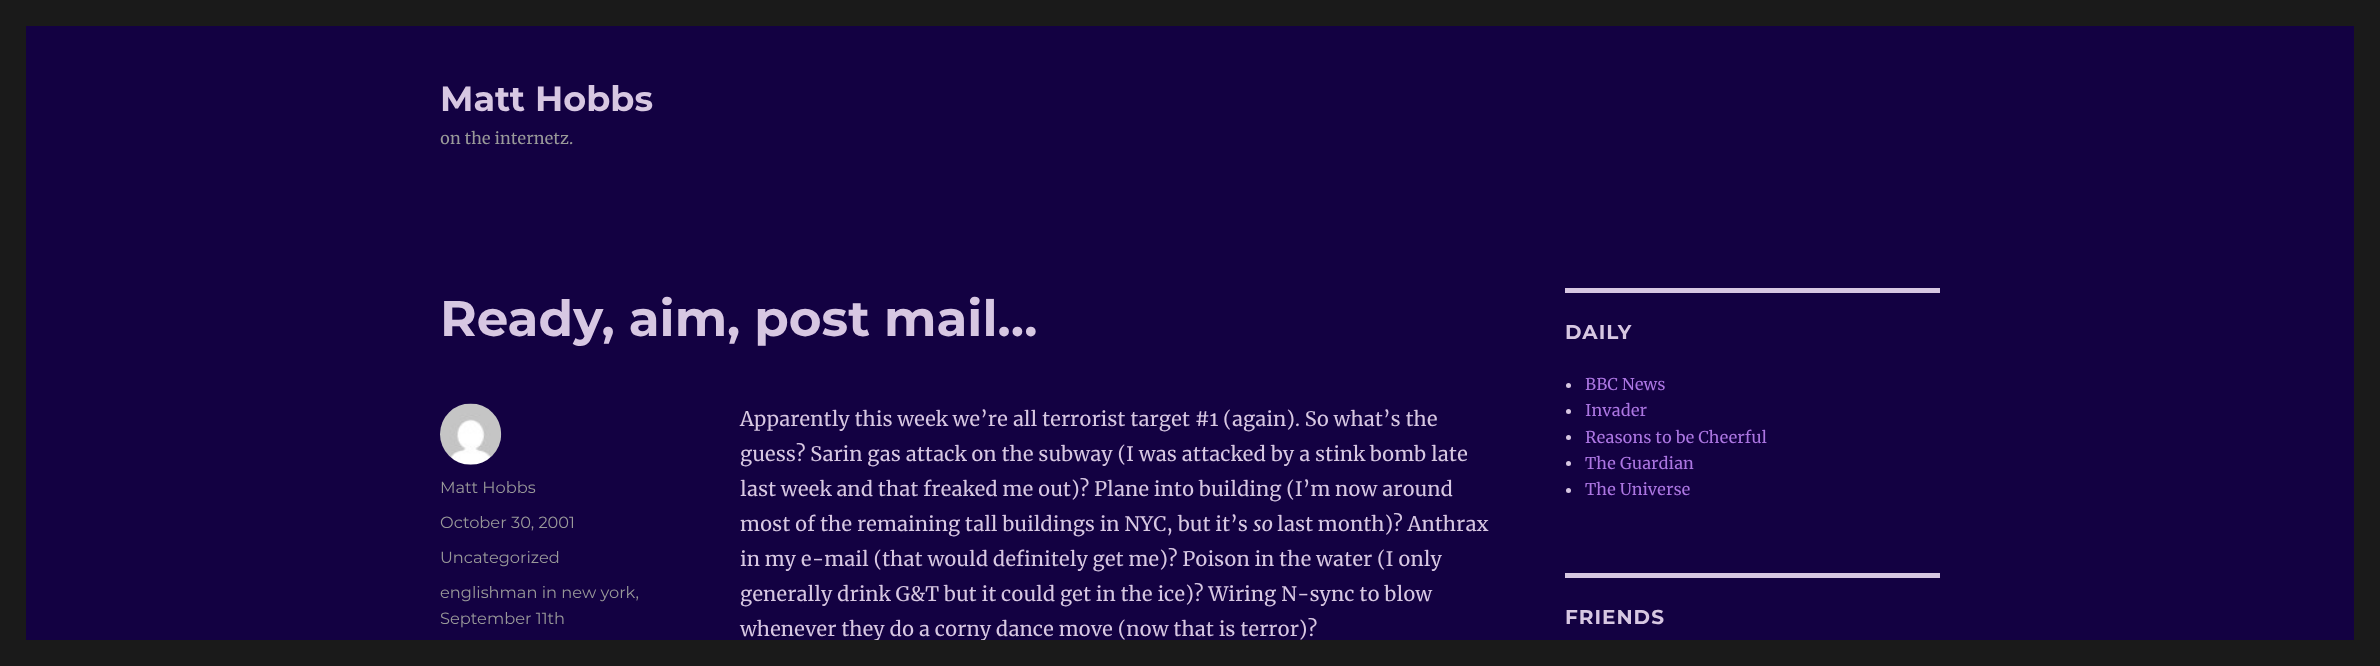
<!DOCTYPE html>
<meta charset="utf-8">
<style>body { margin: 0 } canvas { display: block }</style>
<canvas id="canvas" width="2380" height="666"></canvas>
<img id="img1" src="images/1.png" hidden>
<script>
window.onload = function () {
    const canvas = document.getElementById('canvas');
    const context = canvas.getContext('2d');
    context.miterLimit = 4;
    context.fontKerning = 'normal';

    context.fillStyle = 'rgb(26, 26, 26)';
    context.fillRect(0, 0, 2380, 666);
    context.fillStyle = 'rgb(19, 1, 66)';
    context.fillRect(26, 26, 2328, 614);
    context.drawImage(document.getElementById('img1'), 440, 403, 62, 62);
    context.fillStyle = 'rgb(215, 199, 226)';
    context.fillRect(1565, 288, 375, 5);
    context.beginPath();
    context.arc(1568.5, 385.5, 2.5, 0, 2 * Math.PI);
    context.fill();
    context.beginPath();
    context.arc(1568.5, 411.5, 2.5, 0, 2 * Math.PI);
    context.fill();
    context.beginPath();
    context.arc(1568.5, 437.5, 2.5, 0, 2 * Math.PI);
    context.fill();
    context.beginPath();
    context.arc(1568.5, 463.5, 2.5, 0, 2 * Math.PI);
    context.fill();
    context.beginPath();
    context.arc(1568.5, 490.5, 2.5, 0, 2 * Math.PI);
    context.fill();
    context.fillRect(1565, 573, 375, 5);
    context.font = '100 35px Montserrat';
    context.fillText('Matt Hobbs', 440, 111);
    context.font = '16.25px Merriweather';
    context.fillStyle = 'rgb(153, 153, 153)';
    context.fillText('on the internetz.', 440, 144);
    context.font = '100 50px Montserrat';
    context.fillStyle = 'rgb(215, 199, 226)';
    context.fillText('Ready, aim, post mail…', 440, 336);
    context.font = '100 16.25px "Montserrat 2"';
    context.fillStyle = 'rgb(153, 153, 153)';
    context.fillText('Matt Hobbs', 440, 493);
    context.fillText('October 30, 2001', 440, 528);
    context.fillText('Uncategorized', 440, 563);
    context.fillText('englishman in new york,', 440, 598);
    context.fillText('September 11th', 440, 624);
    context.font = '20px Merriweather';
    context.fillStyle = 'rgb(215, 199, 226)';
    context.fillText('Apparently this week we’re all terrorist target #1 (again). So what’s the', 740, 426);
    context.fillText('guess? Sarin gas attack on the subway (I was attacked by a stink bomb late', 740, 461);
    context.fillText('last week and that freaked me out)? Plane into building (I’m now around', 740, 496);
    context.fillText('most of the remaining tall buildings in NYC, but it’s', 740, 531);
    context.font = 'italic 20px Merriweather';
    context.fillText('so', 1253, 531);
    context.font = '20px Merriweather';
    context.fillText('last month)? Anthrax', 1277, 531);
    context.fillText('in my e-mail (that would definitely get me)? Poison in the water (I only', 740, 566);
    context.fillText('generally drink G&T but it could get in the ice)? Wiring N-sync to blow', 740, 601);
    context.fillText('whenever they do a corny dance move (now that is terror)?', 740, 636);
    context.letterSpacing = '1px';
    context.font = '100 20px Montserrat';
    context.fillText('DAILY', 1565, 339);
    context.letterSpacing = '0px';
    context.font = '16.25px Merriweather';
    context.fillStyle = 'rgb(172, 118, 226)';
    context.fillText('BBC News', 1585, 390);
    context.fillText('Invader', 1585, 416);
    context.fillText('Reasons to be Cheerful', 1585, 443);
    context.fillText('The Guardian', 1585, 469);
    context.fillText('The Universe', 1585, 495);
    context.letterSpacing = '1px';
    context.font = '100 20px Montserrat';
    context.fillStyle = 'rgb(215, 199, 226)';
    context.fillText('FRIENDS', 1565, 624);
    context.fillStyle = 'rgb(26, 26, 26)';
    context.fillRect(874, 640, 111, 1);
};
</script>
